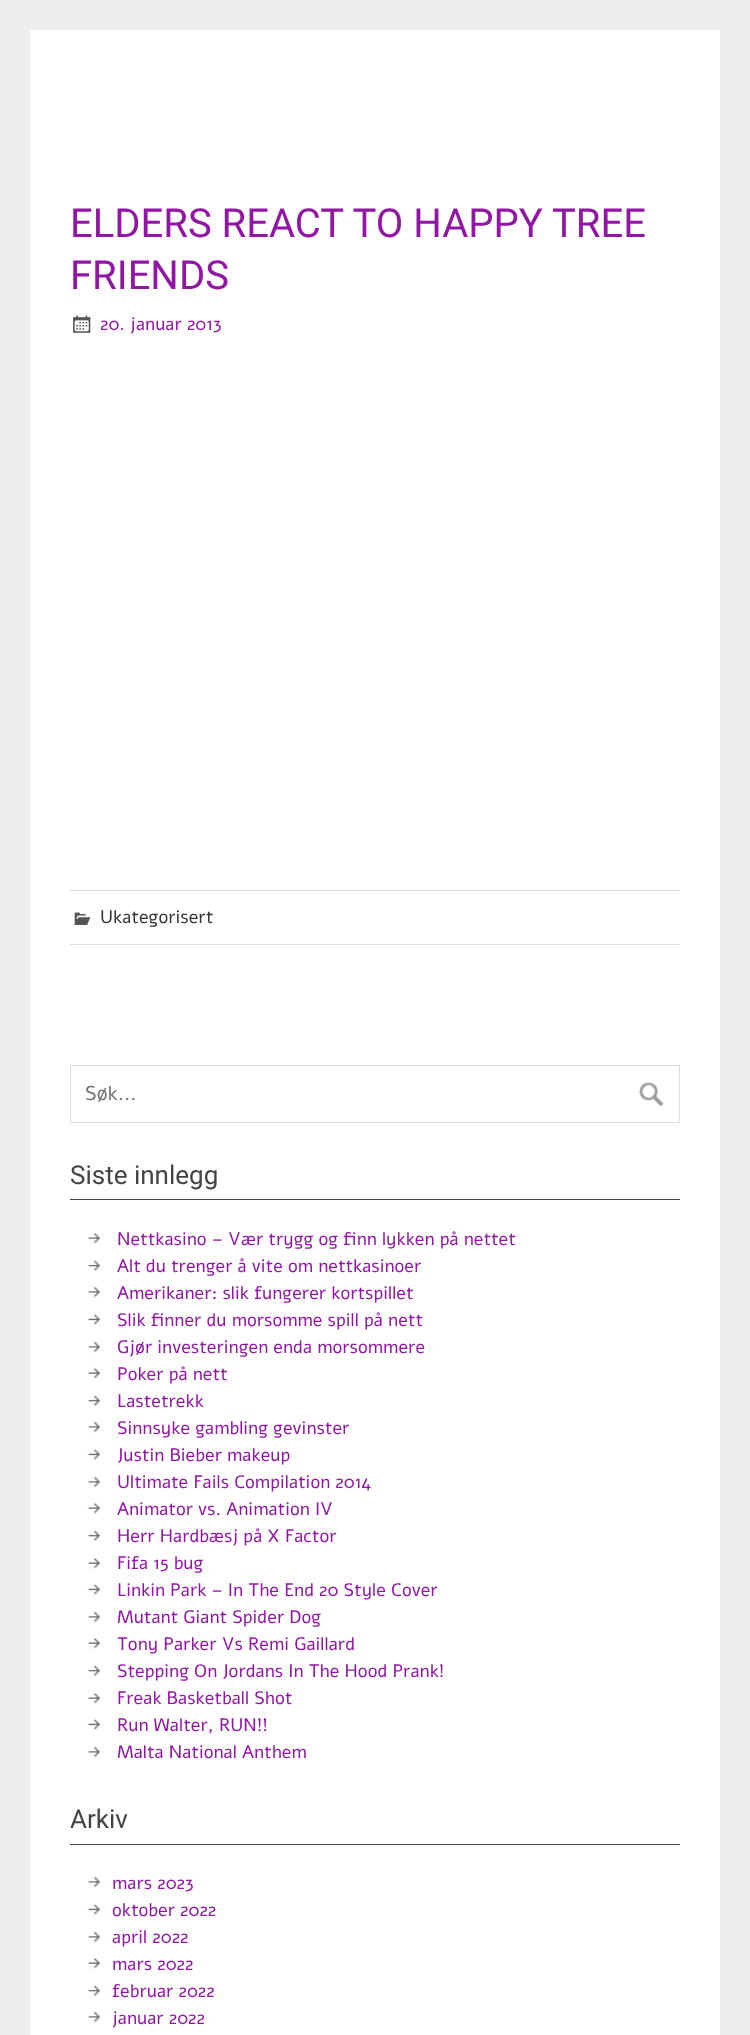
<!DOCTYPE html>
<meta charset="utf-8">
<style>body { margin: 0 } canvas { display: block }</style>
<canvas id="canvas" width="750" height="2035"></canvas>
<img id="img1" src="images/1.png" hidden>
<img id="img2" src="images/2.png" hidden>
<img id="img3" src="images/3.png" hidden>
<img id="img4" src="images/4.png" hidden>
<img id="img5" src="images/5.png" hidden>
<img id="img6" src="images/6.png" hidden>
<img id="img7" src="images/7.png" hidden>
<img id="img8" src="images/8.png" hidden>
<script>
window.onload = function () {
    const canvas = document.getElementById('canvas');
    const context = canvas.getContext('2d');
    context.miterLimit = 4;
    context.fontKerning = 'normal';

    context.fillStyle = 'rgb(238, 238, 238)';
    context.fillRect(0, 0, 750, 2035);
    context.fillStyle = 'rgb(255, 255, 255)';
    context.fillRect(30, 30, 690, 2005);
    context.drawImage(document.getElementById('img1'), 73, 315, 18, 18);
    context.fillStyle = 'rgb(221, 221, 221)';
    context.fillRect(70, 890, 610, 1);
    context.fillRect(70, 944, 610, 1);
    context.drawImage(document.getElementById('img2'), 74, 912, 17, 13);
    context.strokeStyle = 'rgb(221, 221, 221)';
    context.strokeRect(70.5, 1065.5, 609, 57);
    context.drawImage(document.getElementById('img3'), 638, 1082, 26, 25);
    context.fillStyle = 'rgb(68, 68, 68)';
    context.fillRect(70, 1199, 610, 1);
    context.drawImage(document.getElementById('img4'), 87, 1232, 14, 12);
    context.drawImage(document.getElementById('img5'), 87, 1260, 14, 12);
    context.drawImage(document.getElementById('img6'), 87, 1286, 14, 12);
    context.drawImage(document.getElementById('img7'), 87, 1313, 14, 12);
    context.drawImage(document.getElementById('img6'), 87, 1341, 14, 12);
    context.drawImage(document.getElementById('img4'), 87, 1367, 14, 12);
    context.drawImage(document.getElementById('img5'), 87, 1395, 14, 12);
    context.drawImage(document.getElementById('img6'), 87, 1421, 14, 12);
    context.drawImage(document.getElementById('img7'), 87, 1448, 14, 12);
    context.drawImage(document.getElementById('img6'), 87, 1476, 14, 12);
    context.drawImage(document.getElementById('img4'), 87, 1502, 14, 12);
    context.drawImage(document.getElementById('img5'), 87, 1530, 14, 12);
    context.drawImage(document.getElementById('img8'), 87, 1557, 14, 12);
    context.drawImage(document.getElementById('img7'), 87, 1583, 14, 12);
    context.drawImage(document.getElementById('img6'), 87, 1611, 14, 12);
    context.drawImage(document.getElementById('img4'), 87, 1637, 14, 12);
    context.drawImage(document.getElementById('img5'), 87, 1665, 14, 12);
    context.drawImage(document.getElementById('img4'), 87, 1692, 14, 12);
    context.drawImage(document.getElementById('img7'), 87, 1718, 14, 12);
    context.drawImage(document.getElementById('img6'), 87, 1746, 14, 12);
    context.fillRect(70, 1844, 610, 1);
    context.drawImage(document.getElementById('img6'), 87, 1876, 14, 12);
    context.drawImage(document.getElementById('img7'), 87, 1903, 14, 12);
    context.drawImage(document.getElementById('img6'), 87, 1931, 14, 12);
    context.drawImage(document.getElementById('img4'), 87, 1957, 14, 12);
    context.drawImage(document.getElementById('img5'), 87, 1985, 14, 12);
    context.drawImage(document.getElementById('img6'), 87, 2011, 14, 12);
    context.font = '40px Roboto';
    context.fillStyle = 'rgb(146, 21, 165)';
    context.fillText('ELDERS REACT TO HAPPY TREE', 70, 237);
    context.fillText('FRIENDS', 70, 289);
    context.font = '18px Alef';
    context.fillText('20. januar 2013', 100, 330);
    context.fillStyle = 'rgb(51, 51, 51)';
    context.fillText('Ukategorisert', 100, 923);
    context.font = '20px Alef';
    context.fillStyle = 'rgb(117, 117, 117)';
    context.fillText('Søk...', 85, 1100);
    context.font = '26px Roboto';
    context.fillStyle = 'rgb(68, 68, 68)';
    context.fillText('Siste innlegg', 70, 1184);
    context.font = '18px Alef';
    context.fillStyle = 'rgb(146, 21, 165)';
    context.fillText('Nettkasino – Vær trygg og finn lykken på nettet', 117, 1245);
    context.fillText('Alt du trenger å vite om nettkasinoer', 117, 1272);
    context.fillText('Amerikaner: slik fungerer kortspillet', 117, 1299);
    context.fillText('Slik finner du morsomme spill på nett', 117, 1326);
    context.fillText('Gjør investeringen enda morsommere', 117, 1353);
    context.fillText('Poker på nett', 117, 1380);
    context.fillText('Lastetrekk', 117, 1407);
    context.fillText('Sinnsyke gambling gevinster', 117, 1434);
    context.fillText('Justin Bieber makeup', 117, 1461);
    context.fillText('Ultimate Fails Compilation 2014', 117, 1488);
    context.fillText('Animator vs. Animation IV', 117, 1515);
    context.fillText('Herr Hardbæsj på X Factor', 117, 1542);
    context.fillText('Fifa 15 bug', 117, 1569);
    context.fillText('Linkin Park – In The End 20 Style Cover', 117, 1596);
    context.fillText('Mutant Giant Spider Dog', 117, 1623);
    context.fillText('Tony Parker Vs Remi Gaillard', 117, 1650);
    context.fillText('Stepping On Jordans In The Hood Prank!', 117, 1677);
    context.fillText('Freak Basketball Shot', 117, 1704);
    context.fillText('Run Walter, RUN!!', 117, 1731);
    context.fillText('Malta National Anthem', 117, 1758);
    context.font = '26px Roboto';
    context.fillStyle = 'rgb(68, 68, 68)';
    context.fillText('Arkiv', 70, 1828);
    context.font = '18px Alef';
    context.fillStyle = 'rgb(146, 21, 165)';
    context.fillText('mars 2023', 112, 1889);
    context.fillText('oktober 2022', 112, 1916);
    context.fillText('april 2022', 112, 1943);
    context.fillText('mars 2022', 112, 1970);
    context.fillText('februar 2022', 112, 1997);
    context.fillText('januar 2022', 112, 2024);
};
</script>
